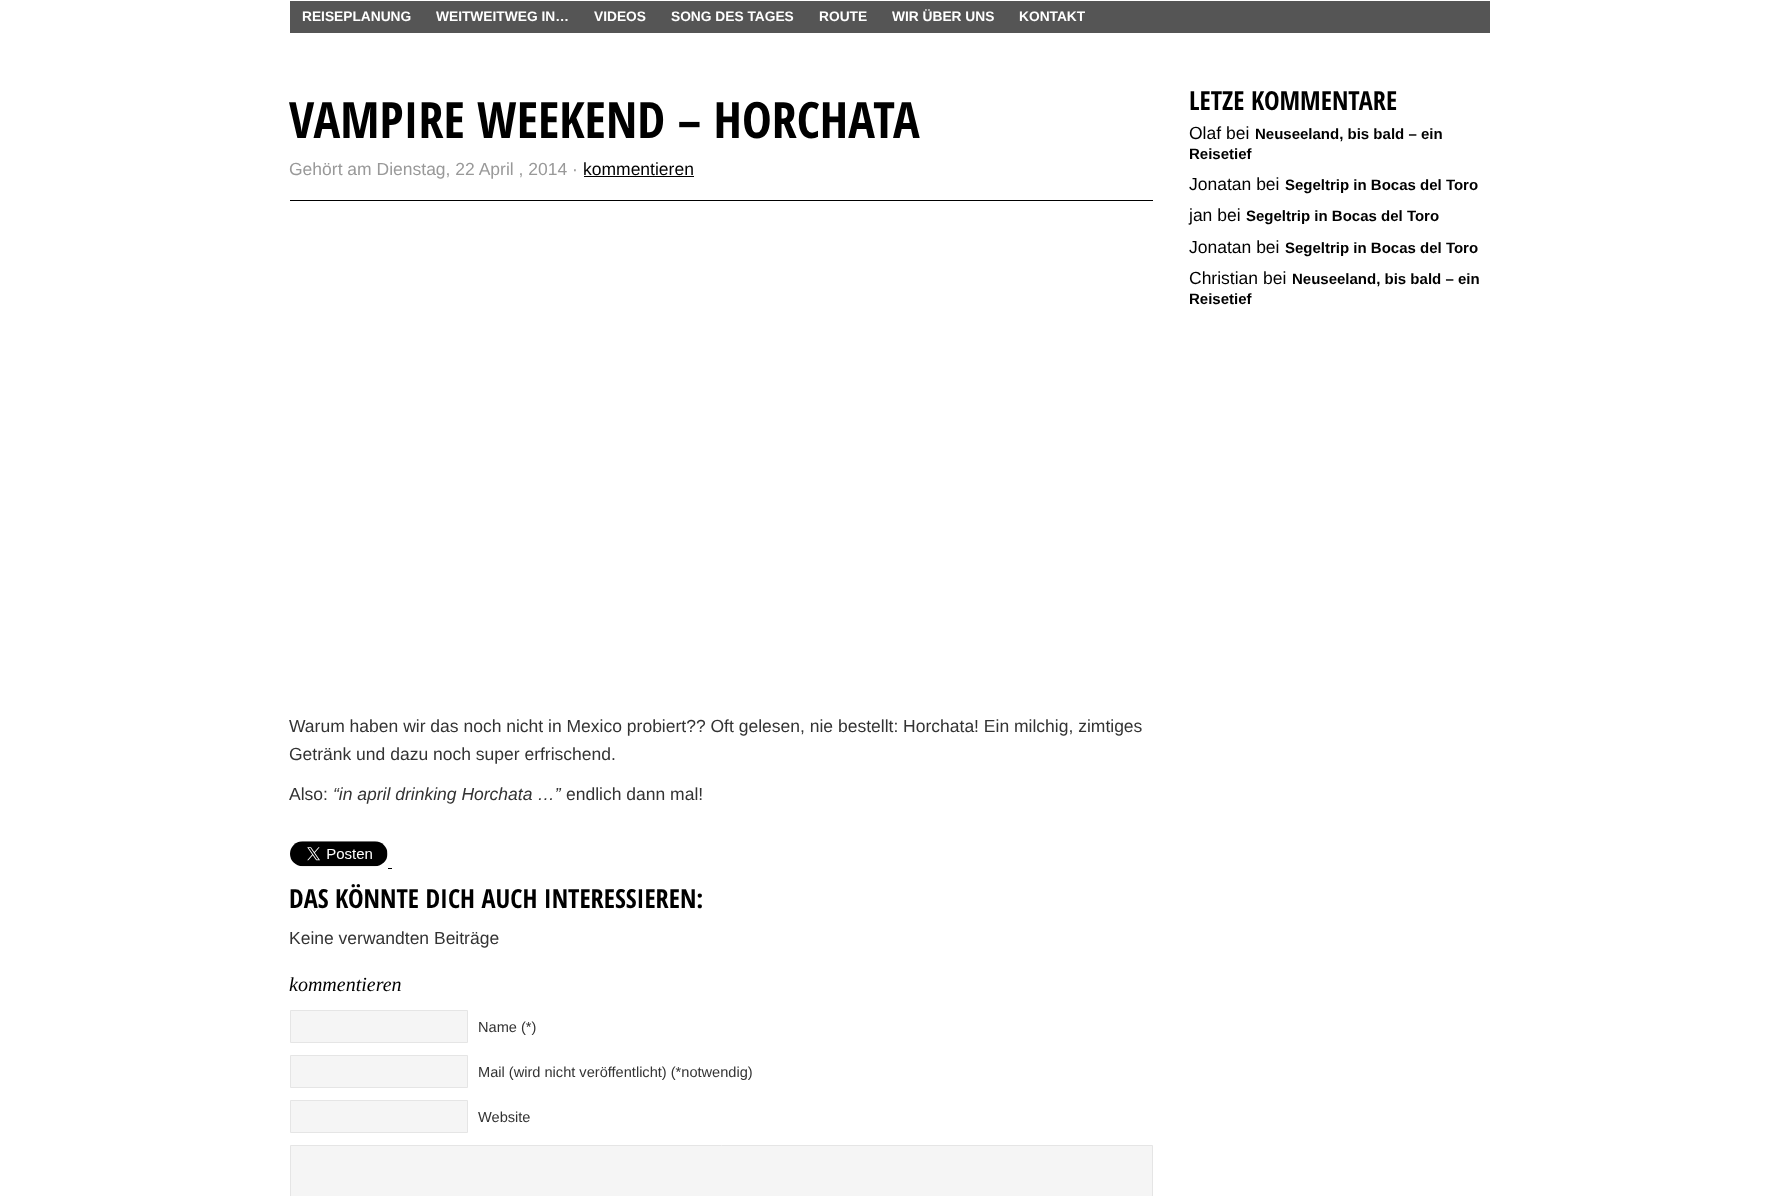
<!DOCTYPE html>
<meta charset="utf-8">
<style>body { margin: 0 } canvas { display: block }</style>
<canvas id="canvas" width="1778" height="1196"></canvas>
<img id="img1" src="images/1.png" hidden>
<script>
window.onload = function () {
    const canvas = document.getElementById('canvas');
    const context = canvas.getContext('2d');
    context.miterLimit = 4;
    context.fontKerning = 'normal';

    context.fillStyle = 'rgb(255, 255, 255)';
    context.fillRect(0, 0, 1778, 1196);
    context.fillStyle = 'rgb(85, 85, 85)';
    context.fillRect(290, 1, 1200, 32);
    context.fillStyle = 'rgb(0, 0, 0)';
    context.fillRect(290, 200, 863, 1);
    context.fillRect(584, 176, 110, 1);
    context.drawImage(document.getElementById('img1'), 290, 841, 98, 26);
    context.fillRect(388, 868, 4, 1);
    context.fillStyle = 'rgb(245, 245, 245)';
    context.beginPath();
    context.rect(290.5, 1010.5, 177, 32);
    context.fill();
    context.strokeStyle = 'rgb(229, 229, 229)';
    context.stroke();
    context.beginPath();
    context.rect(290.5, 1055.5, 177, 32);
    context.fill();
    context.stroke();
    context.beginPath();
    context.rect(290.5, 1100.5, 177, 32);
    context.fill();
    context.stroke();
    context.beginPath();
    context.rect(290.5, 1145.5, 862, 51);
    context.fill();
    context.stroke();
    context.font = 'bold 13.75px Liberation Sans';
    context.fillStyle = 'rgb(255, 255, 255)';
    context.fillText('REISEPLANUNG', 302, 21);
    context.fillText('WEITWEITWEG IN…', 436, 21);
    context.fillText('VIDEOS', 594, 21);
    context.fillText('SONG DES TAGES', 671, 21);
    context.fillText('ROUTE', 819, 21);
    context.fillText('WIR ÜBER UNS', 892, 21);
    context.fillText('KONTAKT', 1019, 21);
    context.font = 'bold 50px Open Sans Condensed';
    context.fillStyle = 'rgb(0, 0, 0)';
    context.fillText('VAMPIRE WEEKEND – HORCHATA', 289, 138);
    context.font = '17.5px Liberation Sans';
    context.fillStyle = 'rgb(153, 153, 153)';
    context.fillText('Gehört am Dienstag, 22 April , 2014 ·', 289, 175);
    context.fillStyle = 'rgb(0, 0, 0)';
    context.fillText('kommentieren', 583, 175);
    context.fillStyle = 'rgb(51, 51, 51)';
    context.fillText('Warum haben wir das noch nicht in Mexico probiert?? Oft gelesen, nie bestellt: Horchata! Ein milchig, zimtiges', 289, 732);
    context.fillText('Getränk und dazu noch super erfrischend.', 289, 760);
    context.fillText('Also:', 289, 800);
    context.font = 'italic 17.5px Liberation Sans';
    context.fillText('“in april drinking Horchata …”', 333, 800);
    context.font = '17.5px Liberation Sans';
    context.fillText('endlich dann mal!', 566, 800);
    context.font = 'bold 26.25px Open Sans Condensed';
    context.fillStyle = 'rgb(0, 0, 0)';
    context.fillText('DAS KÖNNTE DICH AUCH INTERESSIEREN:', 289, 908);
    context.font = '17.5px Liberation Sans';
    context.fillStyle = 'rgb(51, 51, 51)';
    context.fillText('Keine verwandten Beiträge', 289, 944);
    context.font = 'italic 20px Liberation Serif';
    context.fillStyle = 'rgb(0, 0, 0)';
    context.fillText('kommentieren', 289, 991);
    context.font = '14.6px Liberation Sans';
    context.fillStyle = 'rgb(51, 51, 51)';
    context.fillText('Name (*)', 478, 1032);
    context.fillText('Mail (wird nicht veröffentlicht) (*notwendig)', 478, 1077);
    context.fillText('Website', 478, 1122);
    context.font = 'bold 26.25px Open Sans Condensed';
    context.fillStyle = 'rgb(0, 0, 0)';
    context.fillText('LETZE KOMMENTARE', 1189, 110);
    context.font = '17.5px Liberation Sans';
    context.fillText('Olaf bei', 1189, 139);
    context.font = 'bold 15px Liberation Sans';
    context.fillText('Neuseeland, bis bald – ein', 1255, 139);
    context.fillText('Reisetief', 1189, 159);
    context.font = '17.5px Liberation Sans';
    context.fillText('Jonatan bei', 1189, 190);
    context.font = 'bold 15px Liberation Sans';
    context.fillText('Segeltrip in Bocas del Toro', 1285, 190);
    context.font = '17.5px Liberation Sans';
    context.fillText('jan bei', 1189, 221);
    context.font = 'bold 15px Liberation Sans';
    context.fillText('Segeltrip in Bocas del Toro', 1246, 221);
    context.font = '17.5px Liberation Sans';
    context.fillText('Jonatan bei', 1189, 253);
    context.font = 'bold 15px Liberation Sans';
    context.fillText('Segeltrip in Bocas del Toro', 1285, 253);
    context.font = '17.5px Liberation Sans';
    context.fillText('Christian bei', 1189, 284);
    context.font = 'bold 15px Liberation Sans';
    context.fillText('Neuseeland, bis bald – ein', 1292, 284);
    context.fillText('Reisetief', 1189, 304);
};
</script>
